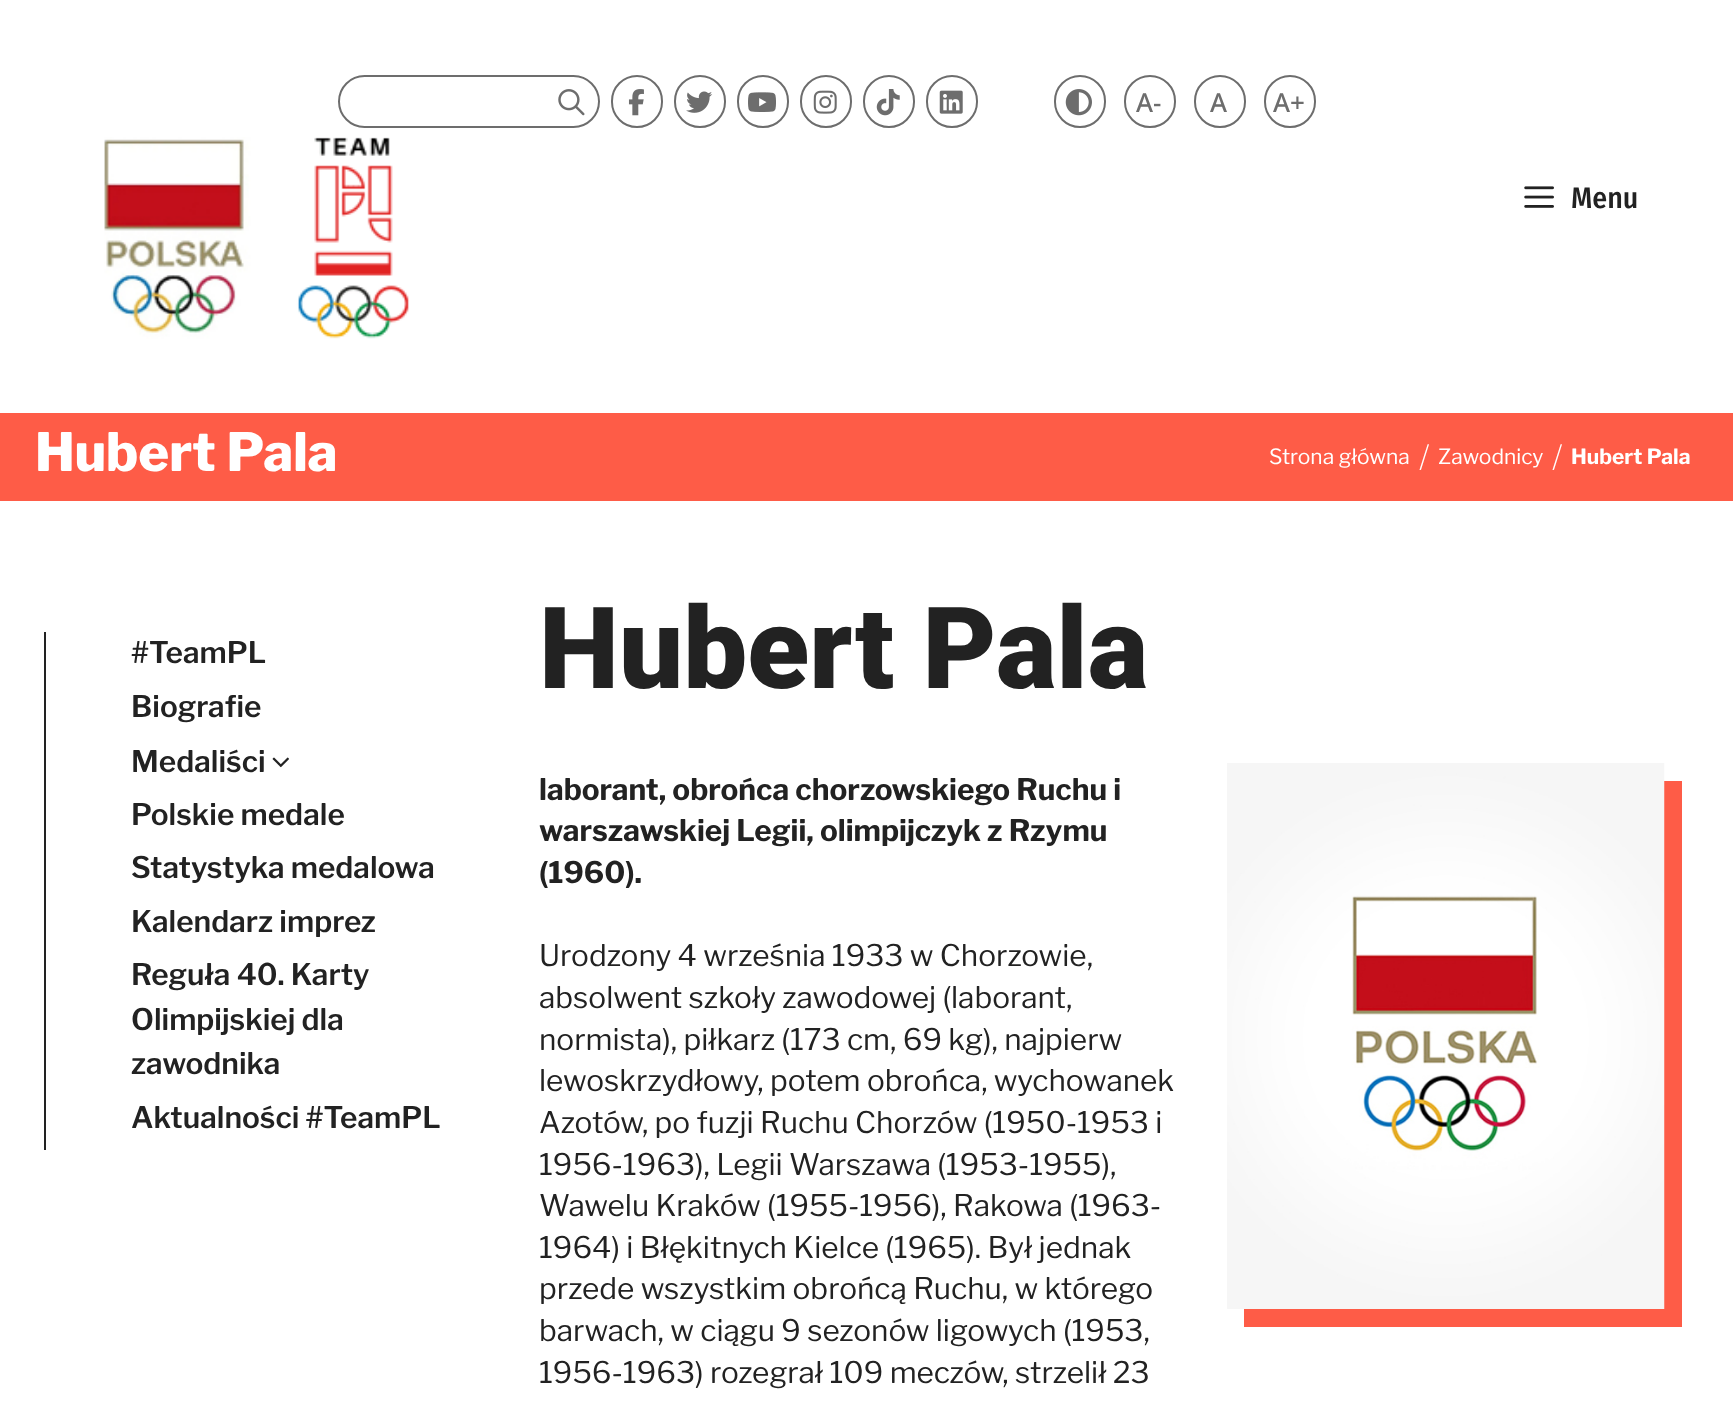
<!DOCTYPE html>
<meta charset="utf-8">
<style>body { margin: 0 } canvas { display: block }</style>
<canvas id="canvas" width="1733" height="1412"></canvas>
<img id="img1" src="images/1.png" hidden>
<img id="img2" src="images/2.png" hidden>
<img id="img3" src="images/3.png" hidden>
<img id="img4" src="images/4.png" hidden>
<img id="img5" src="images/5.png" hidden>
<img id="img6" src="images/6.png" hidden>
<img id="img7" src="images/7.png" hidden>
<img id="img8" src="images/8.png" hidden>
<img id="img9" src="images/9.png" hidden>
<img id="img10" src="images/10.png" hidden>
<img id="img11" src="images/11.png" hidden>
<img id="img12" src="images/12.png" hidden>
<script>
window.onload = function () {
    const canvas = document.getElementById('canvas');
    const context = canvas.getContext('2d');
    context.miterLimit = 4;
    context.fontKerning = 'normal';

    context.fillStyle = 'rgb(255, 255, 255)';
    context.fillRect(0, 0, 1733, 1412);
    context.beginPath();
    context.roundRect(339, 76, 260, 51, 25.5);
    context.strokeStyle = 'rgb(109, 109, 109)';
    context.lineWidth = 2;
    context.stroke();
    context.drawImage(document.getElementById('img1'), 558, 89, 27, 27);
    context.beginPath();
    context.roundRect(612, 76, 50, 51, 25);
    context.stroke();
    context.drawImage(document.getElementById('img2'), 628, 89, 16, 27);
    context.beginPath();
    context.roundRect(675, 76, 50, 51, 25);
    context.stroke();
    context.drawImage(document.getElementById('img3'), 686, 91, 27, 22);
    context.beginPath();
    context.roundRect(738, 76, 50, 51, 25);
    context.stroke();
    context.drawImage(document.getElementById('img4'), 748, 92, 28, 20);
    context.beginPath();
    context.roundRect(801, 76, 50, 51, 25);
    context.stroke();
    context.drawImage(document.getElementById('img5'), 813, 90, 24, 24);
    context.beginPath();
    context.roundRect(864, 76, 50, 51, 25);
    context.stroke();
    context.drawImage(document.getElementById('img6'), 876, 89, 24, 27);
    context.beginPath();
    context.roundRect(927, 76, 50, 51, 25);
    context.stroke();
    context.drawImage(document.getElementById('img7'), 939, 90, 24, 24);
    context.beginPath();
    context.roundRect(1055, 76, 50, 51, 25);
    context.stroke();
    context.drawImage(document.getElementById('img8'), 1065, 89, 27, 27);
    context.beginPath();
    context.roundRect(1125, 76, 50, 51, 25);
    context.stroke();
    context.beginPath();
    context.roundRect(1195, 76, 50, 51, 25);
    context.stroke();
    context.beginPath();
    context.roundRect(1265, 76, 50, 51, 25);
    context.stroke();
    context.drawImage(document.getElementById('img9'), 104, 137, 305, 202);
    context.drawImage(document.getElementById('img10'), 1524, 186, 30, 22);
    context.fillStyle = 'rgb(254, 92, 71)';
    context.fillRect(0, 413, 1733, 88);
    context.fillStyle = 'rgb(34, 34, 34)';
    context.fillRect(44, 632, 2, 518);
    context.drawImage(document.getElementById('img11'), 272, 757, 17, 11);
    context.fillStyle = 'rgb(254, 92, 71)';
    context.fillRect(1244, 781, 438, 546);
    context.drawImage(document.getElementById('img12'), 1227, 763, 438, 546);
    context.font = '500 26px Noto Sans';
    context.fillStyle = 'rgb(109, 109, 109)';
    context.fillText('A-', 1136, 112);
    context.fillText('A', 1210, 112);
    context.fillText('A+', 1273, 112);
    context.font = '500 29.75px Fira Sans Condensed';
    context.fillStyle = 'rgb(34, 34, 34)';
    context.fillText('Menu', 1571, 208);
    context.font = '800 52.5px Libre Franklin';
    context.fillStyle = 'rgb(255, 255, 255)';
    context.fillText('Hubert Pala', 35, 471);
    context.font = '21px Libre Franklin';
    context.fillText('Strona główna', 1269, 464);
    context.font = '100 32px Libre Franklin';
    context.fillText('/', 1419, 468);
    context.font = '21px Libre Franklin';
    context.fillText('Zawodnicy', 1438, 464);
    context.font = '100 32px Libre Franklin';
    context.fillText('/', 1552, 468);
    context.font = 'bold 21px Libre Franklin';
    context.fillText('Hubert Pala', 1571, 464);
    context.font = '600 29.75px Libre Franklin';
    context.fillStyle = 'rgb(34, 34, 34)';
    context.fillText('#TeamPL', 131, 663);
    context.fillText('Biografie', 131, 717);
    context.fillText('Medaliści', 131, 772);
    context.fillText('Polskie medale', 131, 825);
    context.fillText('Statystyka medalowa', 131, 878);
    context.fillText('Kalendarz imprez', 131, 932);
    context.fillText('Reguła 40. Karty', 131, 985);
    context.fillText('Olimpijskiej dla', 131, 1030);
    context.fillText('zawodnika', 131, 1074);
    context.fillText('Aktualności #TeamPL', 131, 1128);
    context.font = '900 113.75px Roboto';
    context.fillText('Hubert Pala', 539, 688);
    context.font = 'bold 29.75px Libre Franklin';
    context.fillText('laborant, obrońca chorzowskiego Ruchu i', 539, 800);
    context.fillText('warszawskiej Legii, olimpijczyk z Rzymu', 539, 841);
    context.fillText('(1960).', 539, 883);
    context.font = '29.75px Libre Franklin';
    context.fillText('Urodzony 4 września 1933 w Chorzowie,', 539, 966);
    context.fillText('absolwent szkoły zawodowej (laborant,', 539, 1008);
    context.fillText('normista), piłkarz (173 cm, 69 kg), najpierw', 539, 1050);
    context.fillText('lewoskrzydłowy, potem obrońca, wychowanek', 539, 1091);
    context.fillText('Azotów, po fuzji Ruchu Chorzów (1950-1953 i', 539, 1133);
    context.fillText('1956-1963), Legii Warszawa (1953-1955),', 539, 1175);
    context.fillText('Wawelu Kraków (1955-1956), Rakowa (1963-', 539, 1216);
    context.fillText('1964) i Błękitnych Kielce (1965). Był jednak', 539, 1258);
    context.fillText('przede wszystkim obrońcą Ruchu, w którego', 539, 1299);
    context.fillText('barwach, w ciągu 9 sezonów ligowych (1953,', 539, 1341);
    context.fillText('1956-1963) rozegrał 109 meczów, strzelił 23', 539, 1383);
};
</script>
